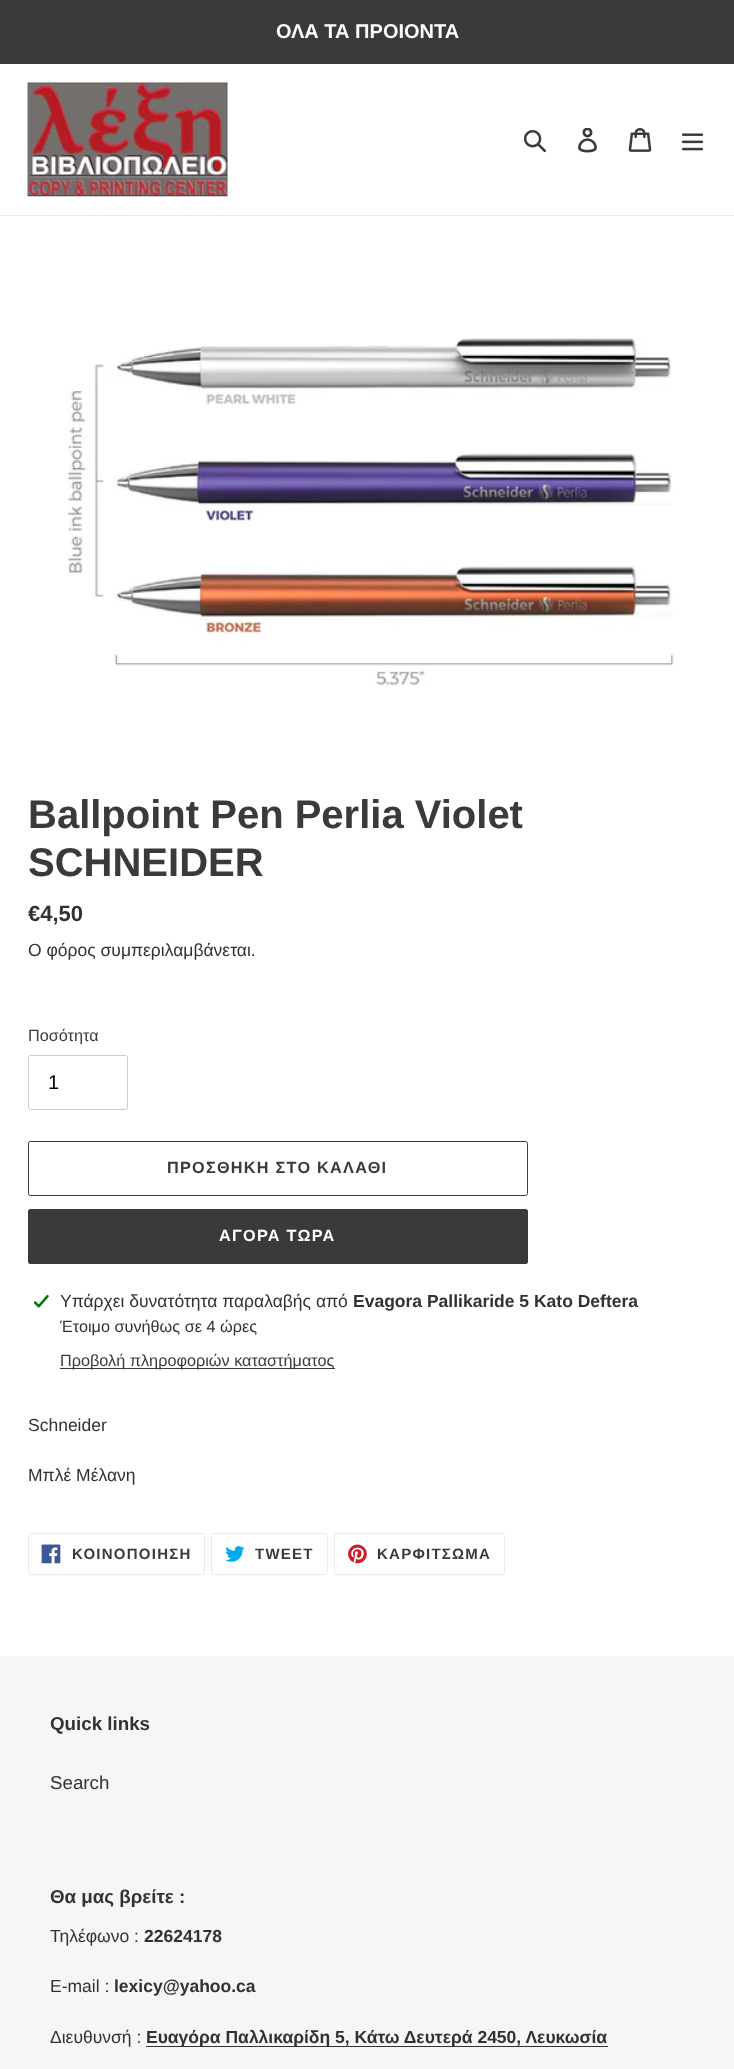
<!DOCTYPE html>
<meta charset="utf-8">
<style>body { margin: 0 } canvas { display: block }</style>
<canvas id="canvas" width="734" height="2069"></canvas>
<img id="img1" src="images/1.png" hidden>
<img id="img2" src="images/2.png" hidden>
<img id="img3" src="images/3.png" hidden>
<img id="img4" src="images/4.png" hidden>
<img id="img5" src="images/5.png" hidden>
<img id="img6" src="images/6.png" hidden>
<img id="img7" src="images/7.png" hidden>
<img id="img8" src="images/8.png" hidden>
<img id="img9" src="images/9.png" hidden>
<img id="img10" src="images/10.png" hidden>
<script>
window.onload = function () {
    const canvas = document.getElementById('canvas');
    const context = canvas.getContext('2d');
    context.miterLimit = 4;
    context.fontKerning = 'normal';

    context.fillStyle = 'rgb(255, 255, 255)';
    context.fillRect(0, 0, 734, 2069);
    context.fillStyle = 'rgb(58, 58, 58)';
    context.fillRect(0, 0, 734, 64);
    context.fillStyle = 'rgb(235, 235, 235)';
    context.fillRect(0, 215, 734, 1);
    context.drawImage(document.getElementById('img1'), 27, 82, 201, 115);
    context.drawImage(document.getElementById('img2'), 523, 130, 23, 23);
    context.drawImage(document.getElementById('img3'), 578, 128, 19, 25);
    context.drawImage(document.getElementById('img4'), 628, 128, 24, 24);
    context.drawImage(document.getElementById('img5'), 681, 133, 23, 18);
    context.drawImage(document.getElementById('img6'), 67, 338, 607, 348);
    context.beginPath();
    context.roundRect(28.5, 1055.5, 99, 54, 2);
    context.strokeStyle = 'rgb(204, 204, 204)';
    context.stroke();
    context.beginPath();
    context.roundRect(28.5, 1141.5, 499, 54, 2);
    context.strokeStyle = 'rgb(58, 58, 58)';
    context.stroke();
    context.fillStyle = 'rgb(58, 58, 58)';
    context.beginPath();
    context.roundRect(28, 1209, 500, 55, 2.5);
    context.fill();
    context.drawImage(document.getElementById('img7'), 34, 1295, 15, 13);
    context.fillRect(60, 1368, 275, 1);
    context.beginPath();
    context.roundRect(28.5, 1533.5, 176, 41, 2);
    context.strokeStyle = 'rgb(235, 235, 235)';
    context.stroke();
    context.drawImage(document.getElementById('img8'), 41, 1544, 20, 20);
    context.beginPath();
    context.roundRect(211.5, 1533.5, 116, 41, 2);
    context.stroke();
    context.drawImage(document.getElementById('img9'), 225, 1546, 20, 16);
    context.beginPath();
    context.roundRect(334.5, 1533.5, 170, 41, 2);
    context.stroke();
    context.drawImage(document.getElementById('img10'), 348, 1544, 19, 20);
    context.fillStyle = 'rgb(246, 246, 246)';
    context.fillRect(0, 1656, 734, 413);
    context.fillStyle = 'rgb(51, 50, 50)';
    context.fillRect(146, 2046, 462, 1);
    context.font = 'bold 20px Liberation Sans';
    context.fillStyle = 'rgb(255, 255, 255)';
    context.fillText('ΟΛΑ ΤΑ ΠΡΟΙΟΝΤΑ', 276, 38);
    context.font = 'bold 40px Liberation Sans';
    context.fillStyle = 'rgb(58, 58, 58)';
    context.fillText('Ballpoint Pen Perlia Violet', 28, 828);
    context.fillText('SCHNEIDER', 28, 876);
    context.font = 'bold 22px Liberation Sans';
    context.fillStyle = 'rgb(51, 50, 50)';
    context.fillText('€4,50', 28, 921);
    context.font = '17.5px Liberation Sans';
    context.fillText('Ο φόρος συμπεριλαμβάνεται.', 28, 956);
    context.font = '16.25px Liberation Sans';
    context.fillStyle = 'rgb(58, 58, 58)';
    context.fillText('Ποσότητα', 28, 1041);
    context.font = '20px Liberation Sans';
    context.fillStyle = 'rgb(0, 0, 0)';
    context.fillText('1', 48, 1089);
    context.letterSpacing = '1.25px';
    context.font = 'bold 16.25px Liberation Sans';
    context.fillStyle = 'rgb(58, 58, 58)';
    context.fillText('ΠΡΟΣΘΗΚΗ ΣΤΟ ΚΑΛΑΘΙ', 167, 1173);
    context.fillStyle = 'rgb(255, 255, 255)';
    context.fillText('ΑΓΟΡΑ ΤΩΡΑ', 219, 1241);
    context.letterSpacing = '0px';
    context.font = '17.5px Liberation Sans';
    context.fillStyle = 'rgb(51, 50, 50)';
    context.fillText('Υπάρχει δυνατότητα παραλαβής από', 60, 1307);
    context.font = 'bold 17.5px Liberation Sans';
    context.fillText('Evagora Pallikaride 5 Kato Deftera', 353, 1307);
    context.font = '16.25px Liberation Sans';
    context.fillText('Έτοιμο συνήθως σε 4 ώρες', 60, 1332);
    context.fillStyle = 'rgb(58, 58, 58)';
    context.fillText('Προβολή πληροφοριών καταστήματος', 60, 1366);
    context.font = '17.5px Liberation Sans';
    context.fillStyle = 'rgb(51, 50, 50)';
    context.fillText('Schneider', 28, 1431);
    context.fillText('Μπλέ Μέλανη', 28, 1481);
    context.letterSpacing = '1.25px';
    context.font = 'bold 15px Liberation Sans';
    context.fillStyle = 'rgb(58, 58, 58)';
    context.fillText('ΚΟΙΝΟΠΟΙΗΣΗ', 72, 1559);
    context.fillText('TWEET', 255, 1559);
    context.fillText('ΚΑΡΦΙΤΣΩΜΑ', 377, 1559);
    context.letterSpacing = '0px';
    context.font = 'bold 18.75px Liberation Sans';
    context.fillStyle = 'rgb(51, 50, 50)';
    context.fillText('Quick links', 50, 1730);
    context.font = '18.75px Liberation Sans';
    context.fillText('Search', 50, 1789);
    context.font = 'bold 18.75px Liberation Sans';
    context.fillText('Θα μας βρείτε :', 50, 1903);
    context.font = '17.5px Liberation Sans';
    context.fillText('Τηλέφωνο :', 50, 1942);
    context.font = 'bold 17.5px Liberation Sans';
    context.fillText('22624178', 144, 1942);
    context.font = '17.5px Liberation Sans';
    context.fillText('E-mail :', 50, 1992);
    context.font = 'bold 17.5px Liberation Sans';
    context.fillText('lexicy@yahoo.ca', 114, 1992);
    context.font = '17.5px Liberation Sans';
    context.fillText('Διευθυνσή :', 50, 2043);
    context.font = 'bold 17.5px Liberation Sans';
    context.fillText('Ευαγόρα Παλλικαρίδη 5, Κάτω Δευτερά 2450, Λευκωσία', 146, 2043);
};
</script>
